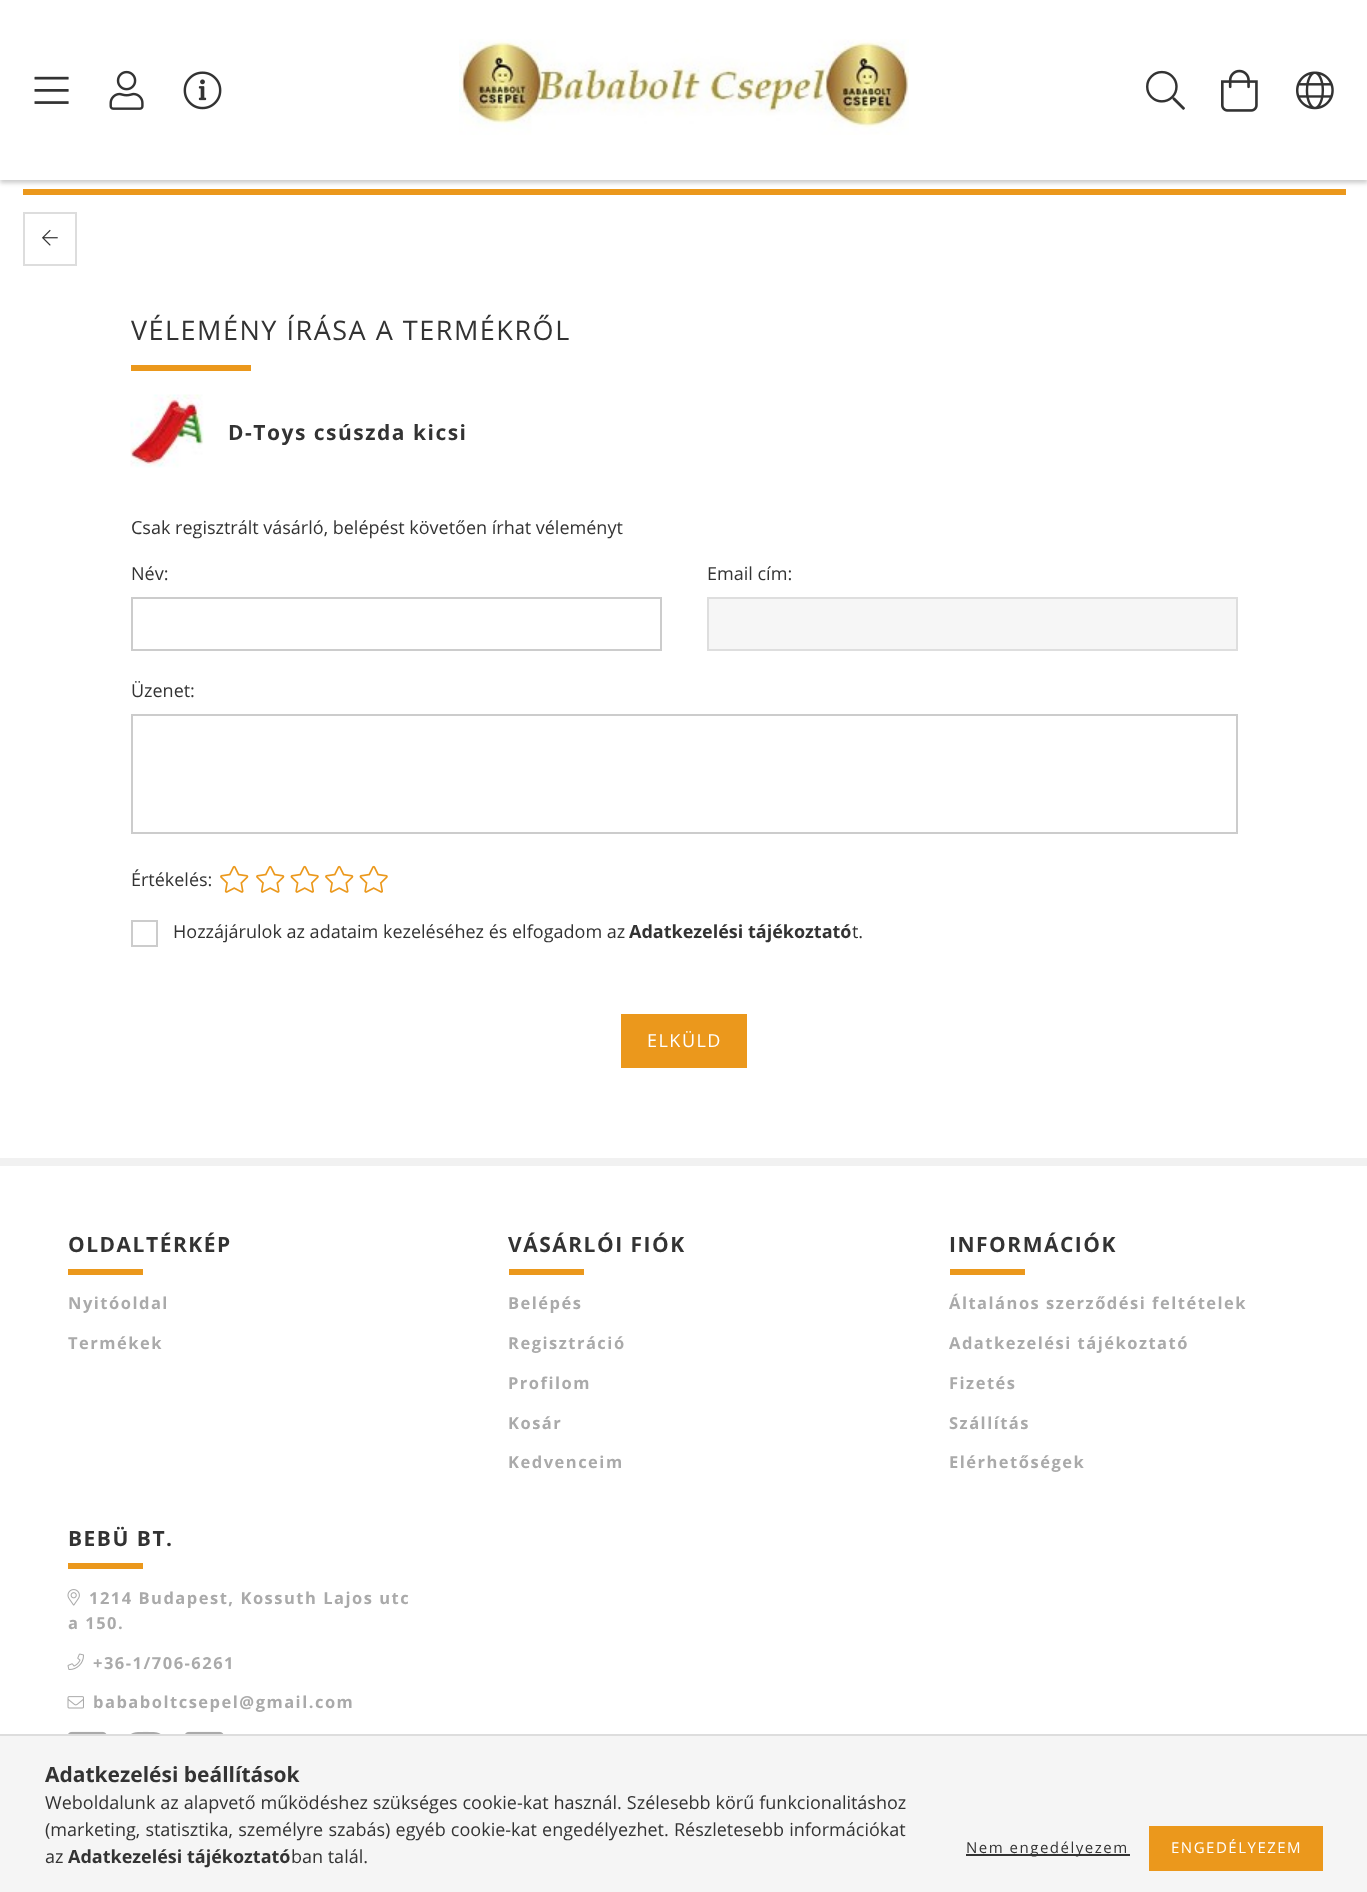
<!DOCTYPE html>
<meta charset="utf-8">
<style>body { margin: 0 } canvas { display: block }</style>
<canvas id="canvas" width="1367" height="1892"></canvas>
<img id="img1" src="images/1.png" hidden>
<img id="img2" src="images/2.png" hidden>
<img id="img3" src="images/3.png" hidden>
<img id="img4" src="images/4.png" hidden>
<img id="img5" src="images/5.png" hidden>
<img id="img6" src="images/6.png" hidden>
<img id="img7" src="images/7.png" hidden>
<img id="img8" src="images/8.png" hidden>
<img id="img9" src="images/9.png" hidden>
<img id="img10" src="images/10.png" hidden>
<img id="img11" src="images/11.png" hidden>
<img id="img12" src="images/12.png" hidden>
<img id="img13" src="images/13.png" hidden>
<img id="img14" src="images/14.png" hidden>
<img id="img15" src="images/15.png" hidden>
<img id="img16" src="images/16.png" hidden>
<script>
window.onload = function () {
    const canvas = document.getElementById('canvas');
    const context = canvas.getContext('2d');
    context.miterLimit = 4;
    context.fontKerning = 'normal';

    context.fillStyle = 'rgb(255, 255, 255)';
    context.fillRect(0, 0, 1367, 1892);
    context.fillStyle = 'rgb(235, 152, 28)';
    context.fillRect(23, 189, 1323, 6);
    context.fillStyle = 'rgba(0, 0, 0, 0.2)';
    context.filter = 'blur(2px)';
    context.beginPath();
    context.rect(0, 3, 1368, 180);
    context.fill();
    context.filter = 'none';
    context.fillStyle = 'rgb(255, 255, 255)';
    context.fillRect(0, 0, 1367, 180);
    context.drawImage(document.getElementById('img1'), 34, 76, 35, 28);
    context.drawImage(document.getElementById('img2'), 109, 70, 35, 40);
    context.drawImage(document.getElementById('img3'), 183, 71, 39, 39);
    context.drawImage(document.getElementById('img4'), 459, 39, 450, 96);
    context.drawImage(document.getElementById('img5'), 1146, 70, 39, 40);
    context.drawImage(document.getElementById('img6'), 1221, 69, 37, 43);
    context.drawImage(document.getElementById('img7'), 1296, 71, 38, 39);
    context.strokeStyle = 'rgb(221, 221, 221)';
    context.lineWidth = 2;
    context.strokeRect(24, 213, 52, 52);
    context.drawImage(document.getElementById('img8'), 42, 229, 16, 17);
    context.fillStyle = 'rgb(235, 152, 28)';
    context.fillRect(131, 365, 120, 6);
    context.drawImage(document.getElementById('img9'), 130, 394, 74, 74);
    context.strokeStyle = 'rgb(204, 204, 204)';
    context.strokeRect(132, 598, 529, 52);
    context.fillStyle = 'rgb(246, 246, 246)';
    context.beginPath();
    context.rect(708, 598, 529, 52);
    context.fill();
    context.strokeStyle = 'rgb(222, 222, 222)';
    context.stroke();
    context.strokeStyle = 'rgb(204, 204, 204)';
    context.strokeRect(132, 715, 1105, 118);
    context.drawImage(document.getElementById('img10'), 220, 865, 29, 28);
    context.drawImage(document.getElementById('img10'), 256, 865, 29, 28);
    context.drawImage(document.getElementById('img11'), 290, 865, 29, 28);
    context.drawImage(document.getElementById('img10'), 325, 865, 29, 28);
    context.drawImage(document.getElementById('img11'), 359, 865, 29, 28);
    context.strokeRect(132, 921, 25, 25);
    context.fillStyle = 'rgb(235, 152, 28)';
    context.fillRect(621, 1014, 126, 54);
    context.fillStyle = 'rgb(241, 241, 241)';
    context.fillRect(0, 1158, 1367, 8);
    context.fillStyle = 'rgb(235, 152, 28)';
    context.fillRect(68, 1269, 75, 6);
    context.fillRect(509, 1269, 75, 6);
    context.fillRect(950, 1269, 75, 6);
    context.fillRect(68, 1563, 75, 6);
    context.drawImage(document.getElementById('img12'), 67, 1589, 13, 17);
    context.drawImage(document.getElementById('img13'), 67, 1653, 17, 17);
    context.drawImage(document.getElementById('img14'), 67, 1696, 17, 13);
    context.drawImage(document.getElementById('img15'), 68, 1731, 39, 3);
    context.drawImage(document.getElementById('img16'), 131, 1731, 30, 3);
    context.drawImage(document.getElementById('img15'), 185, 1731, 39, 3);
    context.fillStyle = 'rgb(245, 245, 245)';
    context.fillRect(0, 1736, 1367, 156);
    context.fillStyle = 'rgb(221, 221, 221)';
    context.fillRect(0, 1734, 1367, 2);
    context.fillStyle = 'rgb(51, 51, 51)';
    context.fillRect(966, 1854, 164, 2);
    context.fillStyle = 'rgb(235, 152, 28)';
    context.fillRect(1149, 1826, 174, 45);
    context.letterSpacing = '1.5px';
    context.font = '27px Open Sans';
    context.fillStyle = 'rgb(51, 51, 51)';
    context.fillText('VÉLEMÉNY ÍRÁSA A TERMÉKRŐL', 131, 340);
    context.font = 'bold 21px Open Sans';
    context.fillText('D-Toys csúszda kicsi', 228, 440);
    context.letterSpacing = '0px';
    context.font = '18px Open Sans';
    context.fillText('Csak regisztrált vásárló, belépést követően írhat véleményt', 131, 534);
    context.fillText('Név:', 131, 580);
    context.fillText('Email cím:', 707, 580);
    context.fillText('Üzenet:', 131, 697);
    context.fillText('Értékelés:', 131, 886);
    context.fillText('Hozzájárulok az adataim kezeléséhez és elfogadom az', 173, 938);
    context.font = 'bold 18px Open Sans';
    context.fillText('Adatkezelési tájékoztató', 629, 938);
    context.font = '18px Open Sans';
    context.fillText('t.', 852, 938);
    context.letterSpacing = '1.5px';
    context.fillStyle = 'rgb(255, 255, 255)';
    context.fillText('ELKÜLD', 647, 1047);
    context.font = 'bold 21px Open Sans';
    context.fillStyle = 'rgb(51, 51, 51)';
    context.fillText('OLDALTÉRKÉP', 68, 1252);
    context.font = 'bold 16.5px Open Sans';
    context.fillStyle = 'rgb(170, 170, 170)';
    context.fillText('Nyitóoldal', 68, 1309);
    context.fillText('Termékek', 68, 1349);
    context.font = 'bold 21px Open Sans';
    context.fillStyle = 'rgb(51, 51, 51)';
    context.fillText('VÁSÁRLÓI FIÓK', 508, 1252);
    context.font = 'bold 16.5px Open Sans';
    context.fillStyle = 'rgb(170, 170, 170)';
    context.fillText('Belépés', 508, 1309);
    context.fillText('Regisztráció', 508, 1349);
    context.fillText('Profilom', 508, 1389);
    context.fillText('Kosár', 508, 1429);
    context.fillText('Kedvenceim', 508, 1468);
    context.font = 'bold 21px Open Sans';
    context.fillStyle = 'rgb(51, 51, 51)';
    context.fillText('INFORMÁCIÓK', 949, 1252);
    context.font = 'bold 16.5px Open Sans';
    context.fillStyle = 'rgb(170, 170, 170)';
    context.fillText('Általános szerződési feltételek', 949, 1309);
    context.fillText('Adatkezelési tájékoztató', 949, 1349);
    context.fillText('Fizetés', 949, 1389);
    context.fillText('Szállítás', 949, 1429);
    context.fillText('Elérhetőségek', 949, 1468);
    context.font = 'bold 21px Open Sans';
    context.fillStyle = 'rgb(51, 51, 51)';
    context.fillText('BEBÜ BT.', 68, 1546);
    context.font = 'bold 16.5px Open Sans';
    context.fillStyle = 'rgb(170, 170, 170)';
    context.fillText('1214 Budapest, Kossuth Lajos utc', 89, 1604);
    context.fillText('a 150.', 68, 1629);
    context.fillText('+36-1/706-6261', 93, 1669);
    context.fillText('bababoltcsepel@gmail.com', 93, 1708);
    context.letterSpacing = '0px';
    context.font = 'bold 21px Open Sans';
    context.fillStyle = 'rgb(51, 51, 51)';
    context.fillText('Adatkezelési beállítások', 45, 1782);
    context.wordSpacing = '0.25px';
    context.font = '18px Open Sans';
    context.fillText('Weboldalunk az alapvető működéshez szükséges cookie-kat használ. Szélesebb körű funkcionalitáshoz', 45, 1809);
    context.wordSpacing = '0.5px';
    context.fillText('(marketing, statisztika, személyre szabás) egyéb cookie-kat engedélyezhet. Részletesebb információkat', 45, 1836);
    context.wordSpacing = '0px';
    context.fillText('az', 45, 1863);
    context.font = 'bold 18px Open Sans';
    context.fillText('Adatkezelési tájékoztató', 68, 1863);
    context.font = '18px Open Sans';
    context.fillText('ban talál.', 291, 1863);
    context.letterSpacing = '1.5px';
    context.font = '15px Open Sans';
    context.fillText('Nem engedélyezem', 966, 1853);
    context.fillStyle = 'rgb(255, 255, 255)';
    context.fillText('ENGEDÉLYEZEM', 1171, 1853);
};
</script>
